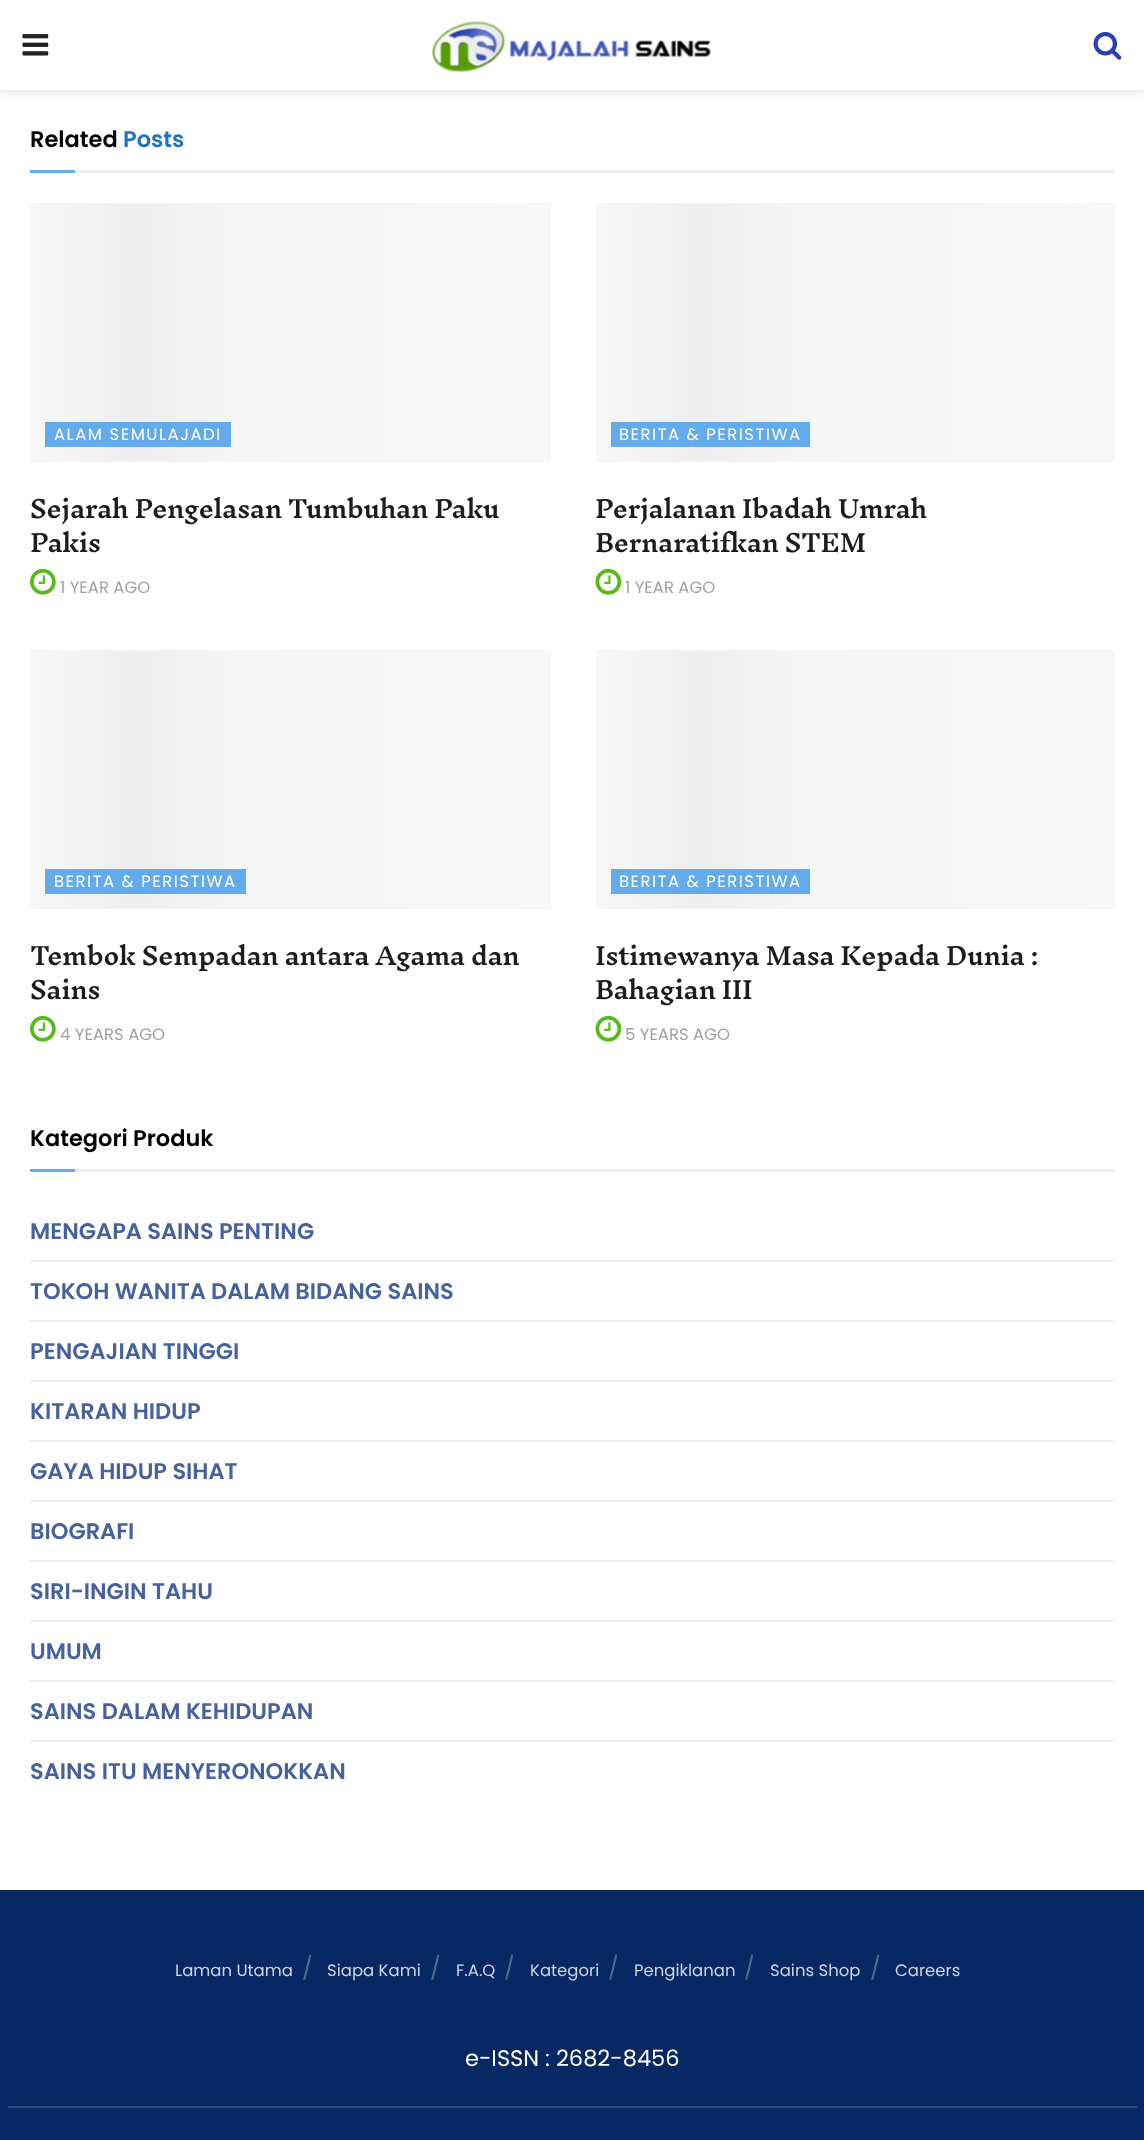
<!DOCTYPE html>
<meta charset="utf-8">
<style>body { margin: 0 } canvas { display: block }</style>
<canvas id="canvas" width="1144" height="2140"></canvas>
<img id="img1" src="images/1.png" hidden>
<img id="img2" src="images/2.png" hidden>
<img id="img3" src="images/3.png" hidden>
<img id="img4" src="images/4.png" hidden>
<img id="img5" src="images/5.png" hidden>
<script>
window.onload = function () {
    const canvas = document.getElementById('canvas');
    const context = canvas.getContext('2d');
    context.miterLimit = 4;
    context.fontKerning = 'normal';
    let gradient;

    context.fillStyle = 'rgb(255, 255, 255)';
    context.fillRect(0, 0, 1144, 2140);
    context.fillStyle = 'rgba(0, 0, 0, 0.1)';
    context.filter = 'blur(4.5px)';
    context.beginPath();
    context.rect(0, 3, 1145, 90);
    context.fill();
    context.filter = 'none';
    context.fillStyle = 'rgb(255, 255, 255)';
    context.fillRect(0, 0, 1144, 90);
    context.drawImage(document.getElementById('img1'), 22, 34, 27, 22);
    context.drawImage(document.getElementById('img2'), 432, 21, 280, 51);
    context.drawImage(document.getElementById('img3'), 1093, 31, 29, 29);
    context.fillStyle = 'rgb(238, 238, 238)';
    context.fillRect(75, 170, 1040, 3);
    context.fillStyle = 'rgb(99, 171, 234)';
    context.fillRect(30, 170, 45, 3);
    gradient = context.createLinearGradient(30, 332, 551, 332);
    gradient.addColorStop(0, 'rgb(247, 247, 247)');
    gradient.addColorStop(0.2, 'rgb(238, 238, 238)');
    gradient.addColorStop(0.4, 'rgb(245, 245, 245)');
    gradient.addColorStop(1, 'rgb(247, 247, 247)');
    context.fillStyle = gradient;
    context.fillRect(30, 203, 521, 259);
    context.fillStyle = 'rgb(99, 171, 234)';
    context.fillRect(45, 422, 186, 25);
    context.drawImage(document.getElementById('img4'), 30, 568, 26, 27);
    gradient = context.createLinearGradient(596, 332, 1115, 332);
    gradient.addColorStop(0, 'rgb(247, 247, 247)');
    gradient.addColorStop(0.2, 'rgb(238, 238, 238)');
    gradient.addColorStop(0.4, 'rgb(245, 245, 245)');
    gradient.addColorStop(1, 'rgb(247, 247, 247)');
    context.fillStyle = gradient;
    context.fillRect(596, 203, 519, 259);
    context.fillStyle = 'rgb(99, 171, 234)';
    context.fillRect(611, 422, 199, 25);
    context.drawImage(document.getElementById('img5'), 595, 568, 27, 27);
    gradient = context.createLinearGradient(30, 779, 551, 779);
    gradient.addColorStop(0, 'rgb(247, 247, 247)');
    gradient.addColorStop(0.2, 'rgb(238, 238, 238)');
    gradient.addColorStop(0.4, 'rgb(245, 245, 245)');
    gradient.addColorStop(1, 'rgb(247, 247, 247)');
    context.fillStyle = gradient;
    context.fillRect(30, 650, 521, 259);
    context.fillStyle = 'rgb(99, 171, 234)';
    context.fillRect(45, 869, 201, 25);
    context.drawImage(document.getElementById('img4'), 30, 1015, 26, 27);
    gradient = context.createLinearGradient(596, 779, 1115, 779);
    gradient.addColorStop(0, 'rgb(247, 247, 247)');
    gradient.addColorStop(0.2, 'rgb(238, 238, 238)');
    gradient.addColorStop(0.4, 'rgb(245, 245, 245)');
    gradient.addColorStop(1, 'rgb(247, 247, 247)');
    context.fillStyle = gradient;
    context.fillRect(596, 650, 519, 259);
    context.fillStyle = 'rgb(99, 171, 234)';
    context.fillRect(611, 869, 199, 25);
    context.drawImage(document.getElementById('img5'), 595, 1015, 27, 27);
    context.fillStyle = 'rgb(238, 238, 238)';
    context.fillRect(75, 1169, 1040, 3);
    context.fillStyle = 'rgb(99, 171, 234)';
    context.fillRect(30, 1169, 45, 3);
    context.fillStyle = 'rgb(238, 238, 238)';
    context.fillRect(30, 1260, 1085, 2);
    context.fillRect(30, 1320, 1085, 2);
    context.fillRect(30, 1380, 1085, 2);
    context.fillRect(30, 1440, 1085, 2);
    context.fillRect(30, 1500, 1085, 2);
    context.fillRect(30, 1560, 1085, 2);
    context.fillRect(30, 1620, 1085, 2);
    context.fillRect(30, 1680, 1085, 2);
    context.fillRect(30, 1740, 1085, 2);
    context.fillStyle = 'rgb(8, 40, 99)';
    context.fillRect(0, 1890, 1144, 250);
    context.fillStyle = 'rgb(45, 72, 122)';
    context.fillRect(8, 2106, 1129, 2);
    context.font = '600 22.5px Poppins';
    context.fillStyle = 'rgb(0, 0, 0)';
    context.fillText('Related', 30, 147);
    context.fillStyle = 'rgb(30, 115, 190)';
    context.fillText('Posts', 123, 147);
    context.letterSpacing = '1.5px';
    context.font = '16.5px Poppins';
    context.fillStyle = 'rgb(255, 255, 255)';
    context.fillText('ALAM SEMULAJADI', 54, 440);
    context.letterSpacing = '-0.5px';
    context.font = '600 24px Inknut Antiqua';
    context.fillStyle = 'rgb(28, 28, 28)';
    context.fillText('Sejarah Pengelasan Tumbuhan Paku', 30, 518);
    context.fillText('Pakis', 30, 552);
    context.letterSpacing = '0px';
    context.font = '16.5px Poppins';
    context.fillStyle = 'rgb(160, 160, 160)';
    context.fillText('1 YEAR AGO', 60, 593);
    context.letterSpacing = '1.5px';
    context.fillStyle = 'rgb(255, 255, 255)';
    context.fillText('BERITA & PERISTIWA', 619, 440);
    context.letterSpacing = '-0.5px';
    context.font = '600 24px Inknut Antiqua';
    context.fillStyle = 'rgb(28, 28, 28)';
    context.fillText('Perjalanan Ibadah Umrah', 595, 518);
    context.fillText('Bernaratifkan STEM', 595, 552);
    context.letterSpacing = '0px';
    context.font = '16.5px Poppins';
    context.fillStyle = 'rgb(160, 160, 160)';
    context.fillText('1 YEAR AGO', 625, 593);
    context.letterSpacing = '1.5px';
    context.fillStyle = 'rgb(255, 255, 255)';
    context.fillText('BERITA & PERISTIWA', 54, 887);
    context.letterSpacing = '-0.5px';
    context.font = '600 24px Inknut Antiqua';
    context.fillStyle = 'rgb(28, 28, 28)';
    context.fillText('Tembok Sempadan antara Agama dan', 30, 965);
    context.fillText('Sains', 30, 999);
    context.letterSpacing = '0px';
    context.font = '16.5px Poppins';
    context.fillStyle = 'rgb(160, 160, 160)';
    context.fillText('4 YEARS AGO', 60, 1040);
    context.letterSpacing = '1.5px';
    context.fillStyle = 'rgb(255, 255, 255)';
    context.fillText('BERITA & PERISTIWA', 619, 887);
    context.letterSpacing = '-0.5px';
    context.font = '600 24px Inknut Antiqua';
    context.fillStyle = 'rgb(28, 28, 28)';
    context.fillText('Istimewanya Masa Kepada Dunia :', 595, 965);
    context.fillText('Bahagian III', 595, 999);
    context.letterSpacing = '0px';
    context.font = '16.5px Poppins';
    context.fillStyle = 'rgb(160, 160, 160)';
    context.fillText('5 YEARS AGO', 625, 1040);
    context.font = '600 22.5px Poppins';
    context.fillStyle = 'rgb(0, 0, 0)';
    context.fillText('Kategori Produk', 30, 1146);
    context.fillStyle = 'rgb(69, 98, 159)';
    context.fillText('MENGAPA SAINS PENTING', 30, 1239);
    context.fillText('TOKOH WANITA DALAM BIDANG SAINS', 30, 1299);
    context.fillText('PENGAJIAN TINGGI', 30, 1359);
    context.fillText('KITARAN HIDUP', 30, 1419);
    context.fillText('GAYA HIDUP SIHAT', 30, 1479);
    context.fillText('BIOGRAFI', 30, 1539);
    context.fillText('SIRI-INGIN TAHU', 30, 1599);
    context.fillText('UMUM', 30, 1659);
    context.fillText('SAINS DALAM KEHIDUPAN', 30, 1719);
    context.fillText('SAINS ITU MENYERONOKKAN', 30, 1779);
    context.font = '16.5px Poppins';
    context.fillStyle = 'rgb(206, 212, 224)';
    context.fillText('Laman Utama', 175, 1976);
    context.font = '22.5px Poppins';
    context.fillStyle = 'rgb(82, 105, 146)';
    context.fillText('/', 302, 1976);
    context.font = '16.5px Poppins';
    context.fillStyle = 'rgb(206, 212, 224)';
    context.fillText('Siapa Kami', 327, 1976);
    context.font = '22.5px Poppins';
    context.fillStyle = 'rgb(82, 105, 146)';
    context.fillText('/', 430, 1976);
    context.font = '16.5px Poppins';
    context.fillStyle = 'rgb(206, 212, 224)';
    context.fillText('F.A.Q', 456, 1976);
    context.font = '22.5px Poppins';
    context.fillStyle = 'rgb(82, 105, 146)';
    context.fillText('/', 504, 1976);
    context.font = '16.5px Poppins';
    context.fillStyle = 'rgb(206, 212, 224)';
    context.fillText('Kategori', 530, 1976);
    context.font = '22.5px Poppins';
    context.fillStyle = 'rgb(82, 105, 146)';
    context.fillText('/', 608, 1976);
    context.font = '16.5px Poppins';
    context.fillStyle = 'rgb(206, 212, 224)';
    context.fillText('Pengiklanan', 634, 1976);
    context.font = '22.5px Poppins';
    context.fillStyle = 'rgb(82, 105, 146)';
    context.fillText('/', 744, 1976);
    context.font = '16.5px Poppins';
    context.fillStyle = 'rgb(206, 212, 224)';
    context.fillText('Sains Shop', 770, 1976);
    context.font = '22.5px Poppins';
    context.fillStyle = 'rgb(82, 105, 146)';
    context.fillText('/', 870, 1976);
    context.font = '16.5px Poppins';
    context.fillStyle = 'rgb(206, 212, 224)';
    context.fillText('Careers', 895, 1976);
    context.font = '22.5px Poppins';
    context.fillStyle = 'rgb(255, 255, 255)';
    context.fillText('e-ISSN : 2682-8456', 465, 2066);
};
</script>
